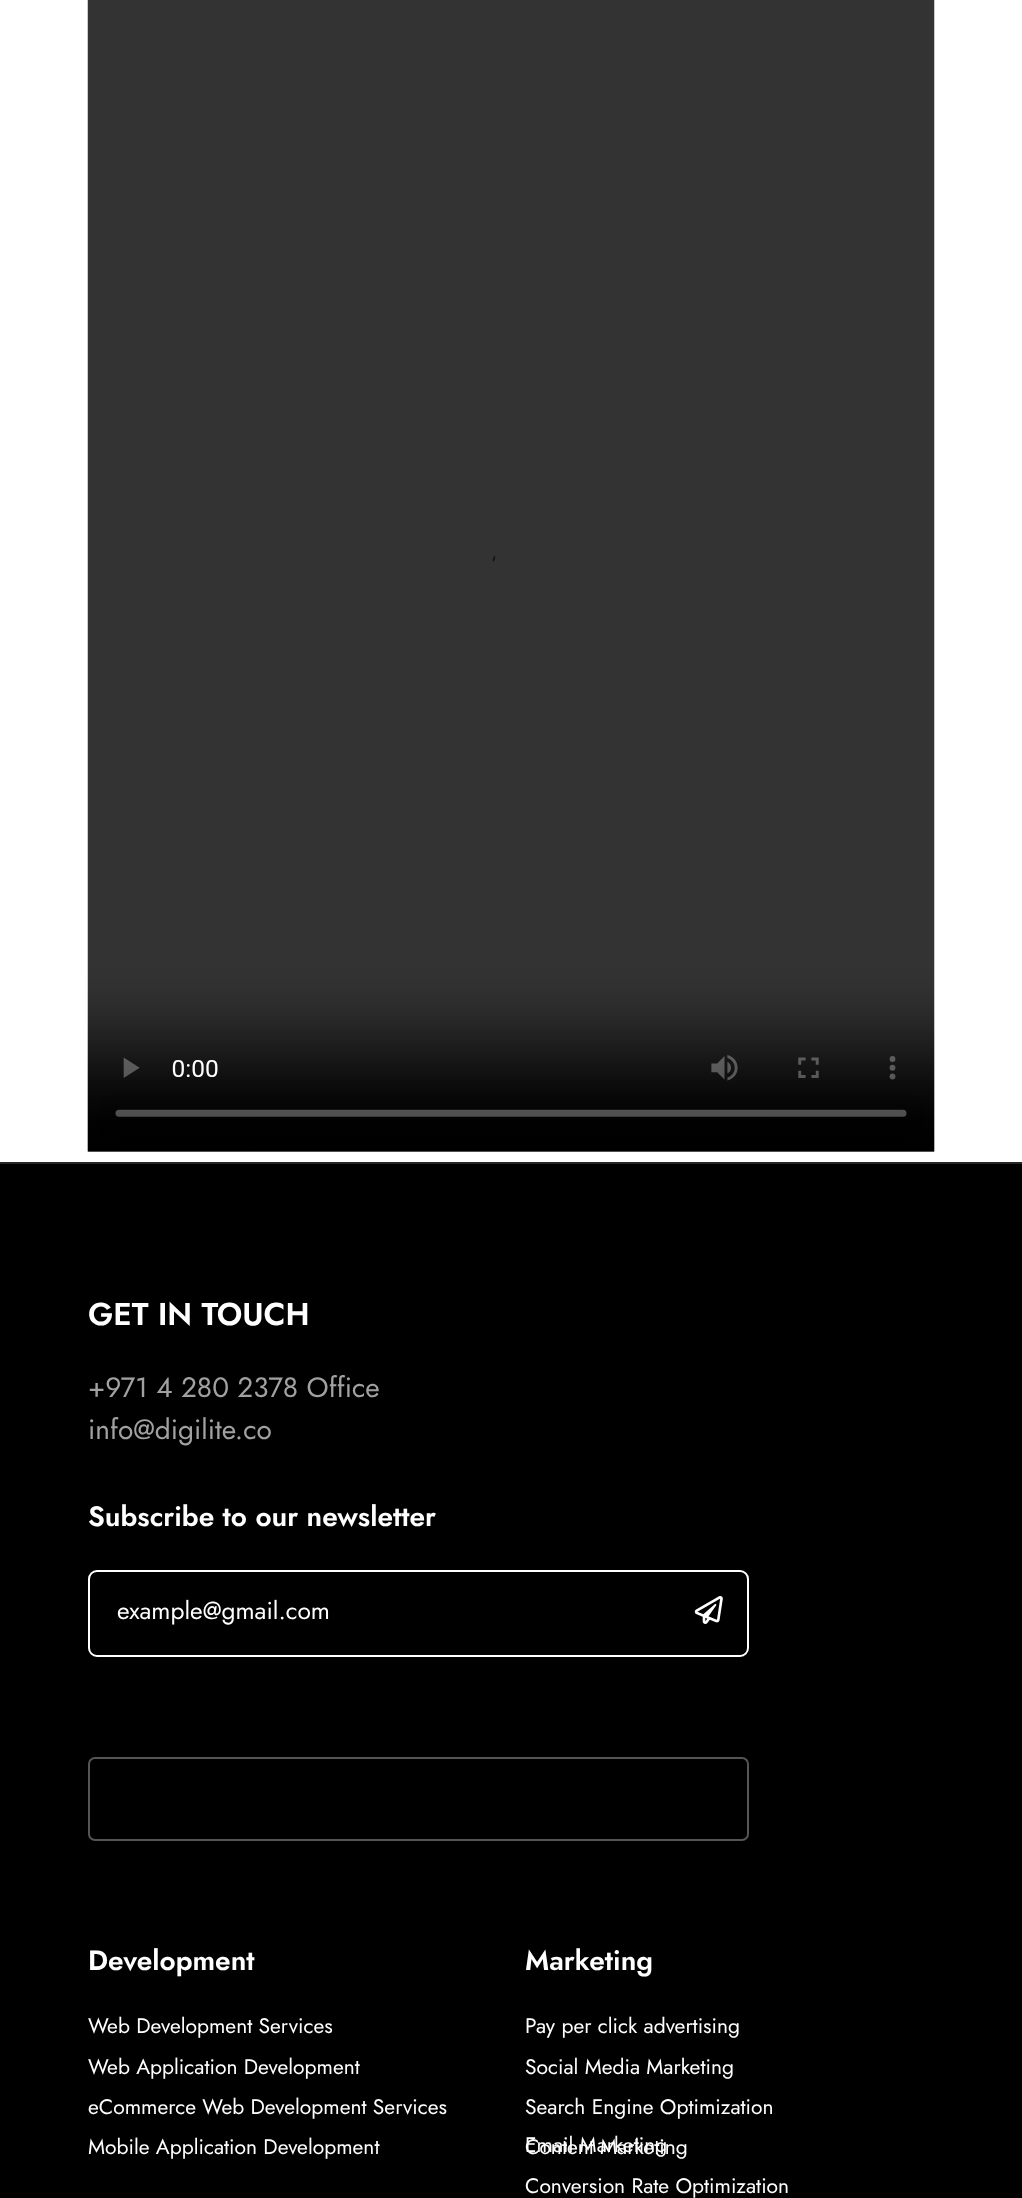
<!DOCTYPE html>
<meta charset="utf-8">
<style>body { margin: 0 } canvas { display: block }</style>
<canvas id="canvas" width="1022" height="2198"></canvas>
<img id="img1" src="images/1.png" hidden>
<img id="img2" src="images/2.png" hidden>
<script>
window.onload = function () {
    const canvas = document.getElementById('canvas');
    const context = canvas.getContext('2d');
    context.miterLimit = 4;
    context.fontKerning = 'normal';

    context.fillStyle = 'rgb(255, 255, 255)';
    context.fillRect(0, 0, 1022, 2198);
    context.drawImage(document.getElementById('img1'), 87, 0, 848, 1152);
    context.fillStyle = 'rgb(0, 0, 0)';
    context.fillRect(0, 1164, 1022, 1034);
    context.fillStyle = 'rgb(39, 39, 39)';
    context.fillRect(0, 1162, 1022, 2);
    context.beginPath();
    context.roundRect(89, 1571, 659, 85, 8);
    context.strokeStyle = 'rgb(255, 255, 255)';
    context.lineWidth = 2;
    context.stroke();
    context.drawImage(document.getElementById('img2'), 694, 1596, 29, 28);
    context.beginPath();
    context.roundRect(89, 1758, 659, 82, 6);
    context.strokeStyle = 'rgb(85, 85, 85)';
    context.stroke();
    context.font = '600 31.5px Jost';
    context.fillStyle = 'rgb(255, 255, 255)';
    context.fillText('GET IN TOUCH', 88, 1325);
    context.font = '28px Jost';
    context.fillStyle = 'rgb(161, 161, 161)';
    context.fillText('+971 4 280 2378 Office', 88, 1397);
    context.fillText('info@digilite.co', 88, 1439);
    context.font = '600 28px Jost';
    context.fillStyle = 'rgb(255, 255, 255)';
    context.fillText('Subscribe to our newsletter', 88, 1526);
    context.font = '24.5px Jost';
    context.fillText('example@gmail.com', 117, 1619);
    context.font = '600 28px Jost';
    context.fillText('Development', 88, 1970);
    context.font = '21px Jost';
    context.fillText('Web Development Services', 88, 2033);
    context.fillText('Web Application Development', 88, 2074);
    context.fillText('eCommerce Web Development Services', 88, 2114);
    context.fillText('Mobile Application Development', 88, 2154);
    context.font = '600 28px Jost';
    context.fillText('Marketing', 525, 1970);
    context.font = '21px Jost';
    context.fillText('Pay per click advertising', 525, 2033);
    context.fillText('Social Media Marketing', 525, 2074);
    context.fillText('Search Engine Optimization', 525, 2114);
    context.fillText('Content Marketing', 525, 2154);
    context.fillText('Email Marketing', 525, 2152);
    context.fillText('Conversion Rate Optimization', 525, 2193);
};
</script>
